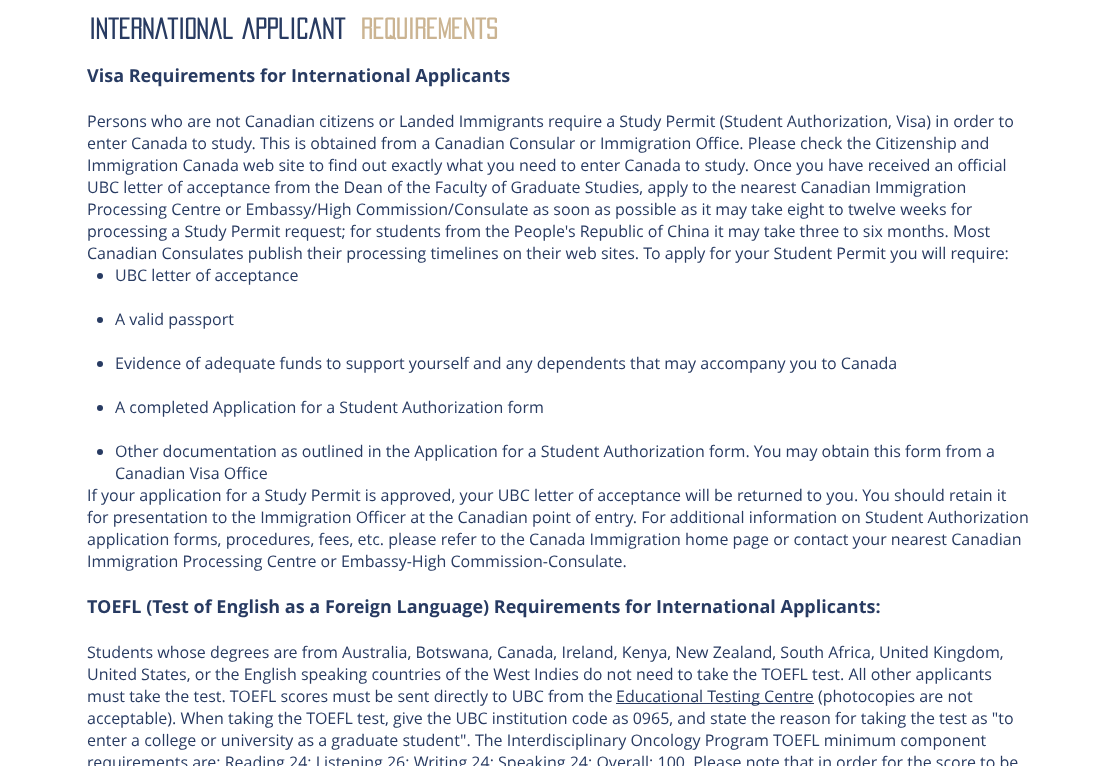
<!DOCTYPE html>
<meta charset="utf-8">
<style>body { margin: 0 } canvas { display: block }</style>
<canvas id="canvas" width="1119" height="766"></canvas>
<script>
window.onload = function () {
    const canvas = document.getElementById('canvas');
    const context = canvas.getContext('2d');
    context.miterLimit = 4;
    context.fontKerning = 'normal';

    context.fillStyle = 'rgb(255, 255, 255)';
    context.fillRect(0, 0, 1119, 766);
    context.fillStyle = 'rgb(40, 59, 98)';
    context.beginPath();
    context.arc(100, 276, 3, 0, 2 * Math.PI);
    context.fill();
    context.beginPath();
    context.arc(100, 320, 3, 0, 2 * Math.PI);
    context.fill();
    context.beginPath();
    context.arc(100, 364, 3, 0, 2 * Math.PI);
    context.fill();
    context.beginPath();
    context.arc(100, 408, 3, 0, 2 * Math.PI);
    context.fill();
    context.beginPath();
    context.arc(100, 452, 3, 0, 2 * Math.PI);
    context.fill();
    context.fillRect(616, 703, 198, 1);
    context.font = 'bold 26px "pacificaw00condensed"';
    context.fillText('International applicant', 89, 39);
    context.fillStyle = 'rgb(203, 180, 146)';
    context.fillText('requirements', 361, 39);
    context.font = 'bold 18px Open Sans';
    context.fillStyle = 'rgb(40, 59, 98)';
    context.fillText('Visa Requirements for International Applicants', 87, 82);
    context.font = '16px Open Sans';
    context.fillText('Persons who are not Canadian citizens or Landed Immigrants require a Study Permit (Student Authorization, Visa) in order to', 87, 127);
    context.fillText('enter Canada to study. This is obtained from a Canadian Consular or Immigration Office. Please check the Citizenship and', 87, 149);
    context.fillText('Immigration Canada web site to find out exactly what you need to enter Canada to study. Once you have received an official', 87, 171);
    context.fillText('UBC letter of acceptance from the Dean of the Faculty of Graduate Studies, apply to the nearest Canadian Immigration', 87, 193);
    context.fillText('Processing Centre or Embassy/High Commission/Consulate as soon as possible as it may take eight to twelve weeks for', 87, 215);
    context.fillText('processing a Study Permit request; for students from the People\'s Republic of China it may take three to six months. Most', 87, 237);
    context.fillText('Canadian Consulates publish their processing timelines on their web sites. To apply for your Student Permit you will require:', 87, 259);
    context.fillText('UBC letter of acceptance', 115, 281);
    context.fillText('A valid passport', 115, 325);
    context.fillText('Evidence of adequate funds to support yourself and any dependents that may accompany you to Canada', 115, 369);
    context.fillText('A completed Application for a Student Authorization form', 115, 413);
    context.fillText('Other documentation as outlined in the Application for a Student Authorization form. You may obtain this form from a', 115, 457);
    context.fillText('Canadian Visa Office', 115, 479);
    context.fillText('If your application for a Study Permit is approved, your UBC letter of acceptance will be returned to you. You should retain it', 87, 501);
    context.fillText('for presentation to the Immigration Officer at the Canadian point of entry. For additional information on Student Authorization', 87, 523);
    context.fillText('application forms, procedures, fees, etc. please refer to the Canada Immigration home page or contact your nearest Canadian', 87, 545);
    context.fillText('Immigration Processing Centre or Embassy-High Commission-Consulate.', 87, 567);
    context.font = 'bold 18px Open Sans';
    context.fillText('TOEFL (Test of English as a Foreign Language) Requirements for International Applicants:', 87, 613);
    context.font = '16px Open Sans';
    context.fillText('Students whose degrees are from Australia, Botswana, Canada, Ireland, Kenya, New Zealand, South Africa, United Kingdom,', 87, 658);
    context.fillText('United States, or the English speaking countries of the West Indies do not need to take the TOEFL test. All other applicants', 87, 680);
    context.fillText('must take the test. TOEFL scores must be sent directly to UBC from the', 87, 702);
    context.fillText('Educational Testing Centre (photocopies are not', 616, 702);
    context.fillText('acceptable). When taking the TOEFL test, give the UBC institution code as 0965, and state the reason for taking the test as "to', 87, 724);
    context.fillText('enter a college or university as a graduate student". The Interdisciplinary Oncology Program TOEFL minimum component', 87, 746);
    context.fillText('requirements are: Reading 24; Listening 26; Writing 24; Speaking 24; Overall; 100. Please note that in order for the score to be', 87, 768);
};
</script>
